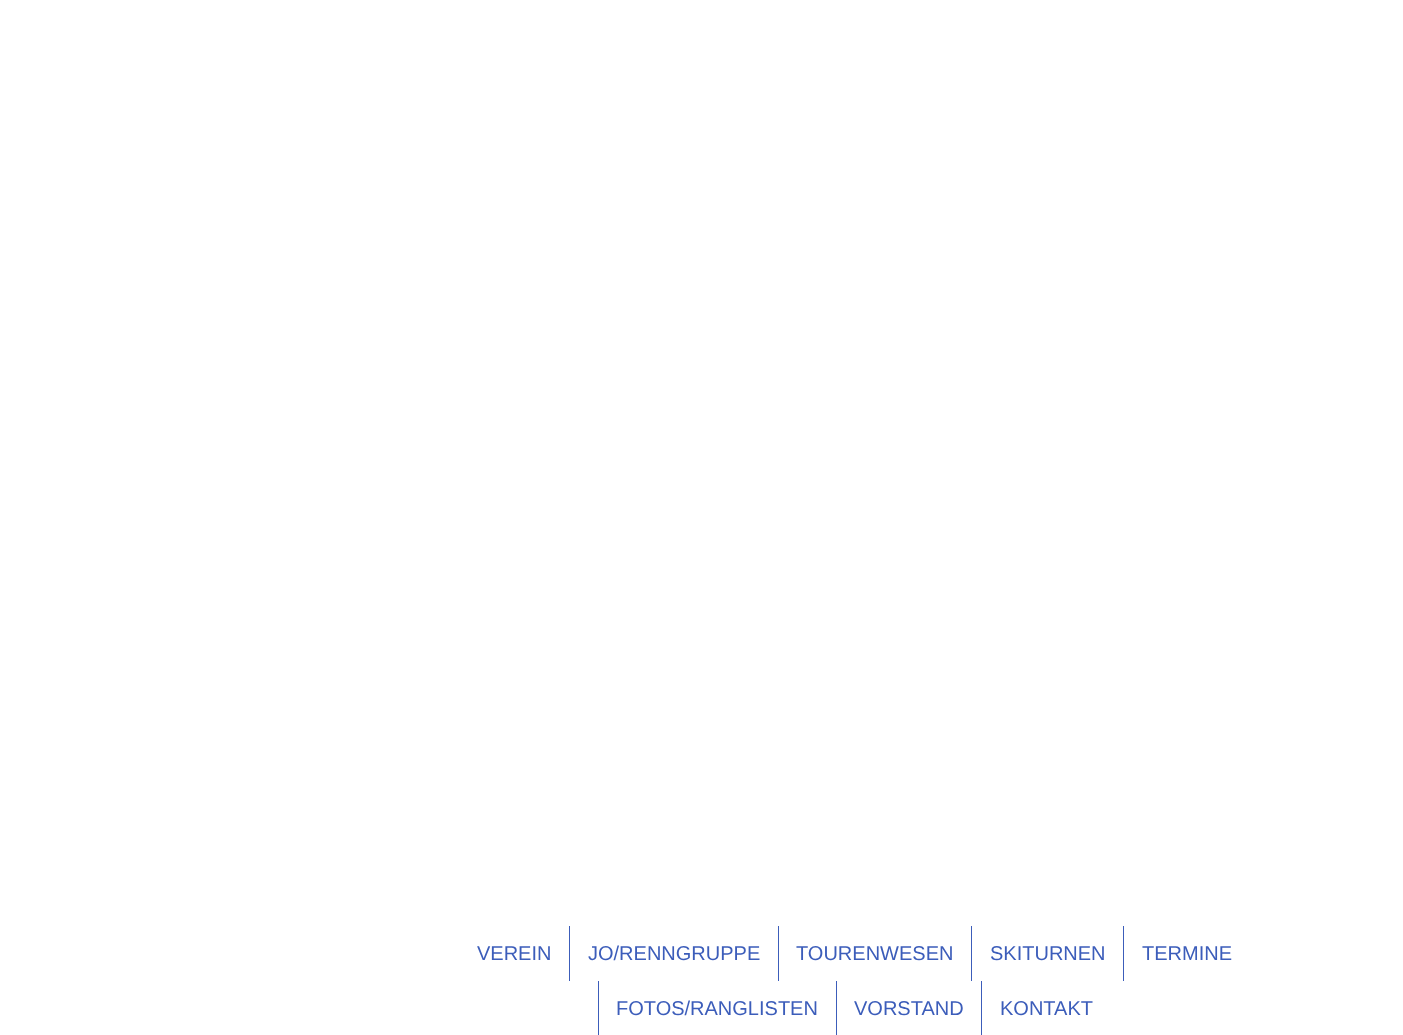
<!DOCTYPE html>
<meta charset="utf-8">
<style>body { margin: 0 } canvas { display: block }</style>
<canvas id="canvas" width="1403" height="1035"></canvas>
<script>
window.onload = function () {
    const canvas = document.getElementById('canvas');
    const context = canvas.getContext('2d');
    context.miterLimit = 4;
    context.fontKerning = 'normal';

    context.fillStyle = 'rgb(255, 255, 255)';
    context.fillRect(0, 0, 1403, 1035);
    context.fillStyle = 'rgb(60, 93, 186)';
    context.fillRect(569, 926, 1, 55);
    context.fillRect(778, 926, 1, 55);
    context.fillRect(971, 926, 1, 55);
    context.fillRect(1123, 926, 1, 55);
    context.fillRect(598, 981, 1, 54);
    context.fillRect(836, 981, 1, 54);
    context.fillRect(981, 981, 1, 54);
    context.font = '20px Liberation Sans';
    context.fillText('VEREIN', 477, 960);
    context.fillText('JO/RENNGRUPPE', 588, 960);
    context.fillText('TOURENWESEN', 796, 960);
    context.fillText('SKITURNEN', 990, 960);
    context.fillText('TERMINE', 1142, 960);
    context.fillText('FOTOS/RANGLISTEN', 616, 1015);
    context.fillText('VORSTAND', 854, 1015);
    context.fillText('KONTAKT', 1000, 1015);
};
</script>
